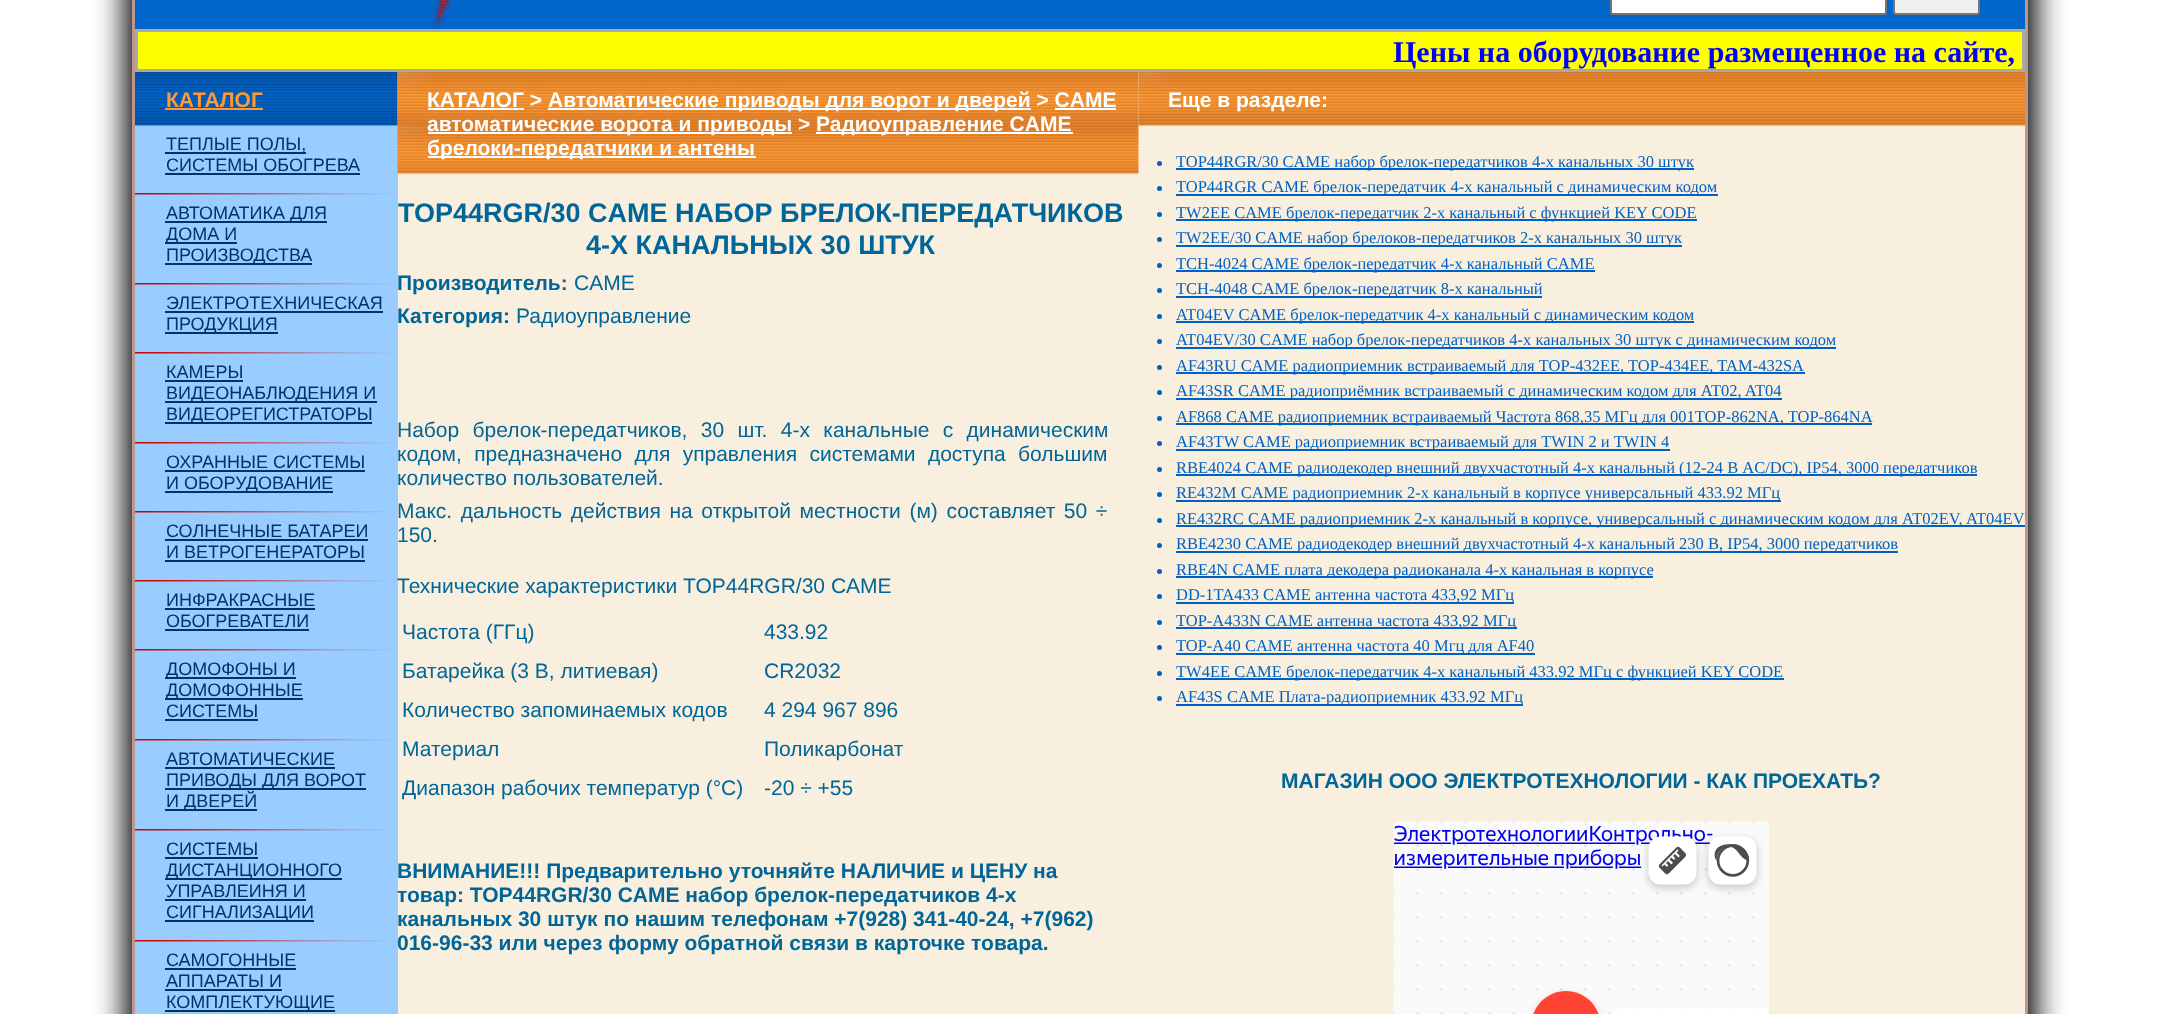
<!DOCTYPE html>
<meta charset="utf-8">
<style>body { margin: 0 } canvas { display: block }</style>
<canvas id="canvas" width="2159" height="1014"></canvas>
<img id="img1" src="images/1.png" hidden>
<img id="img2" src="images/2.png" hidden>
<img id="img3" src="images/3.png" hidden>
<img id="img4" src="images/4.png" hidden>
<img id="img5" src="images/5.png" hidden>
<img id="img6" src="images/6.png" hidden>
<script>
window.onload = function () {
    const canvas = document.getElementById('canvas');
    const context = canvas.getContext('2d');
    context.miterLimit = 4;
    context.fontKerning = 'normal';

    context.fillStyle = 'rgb(255, 255, 255)';
    context.fillRect(0, 0, 2159, 1014);
    context.fillStyle = 'rgb(0, 0, 0)';
    context.filter = 'blur(15px)';
    context.beginPath();
    context.rect(125, -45, 1911, 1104);
    context.fill();
    context.filter = 'none';
    context.fillStyle = 'rgb(248, 239, 223)';
    context.fillRect(398, 72, 1627, 942);
    context.strokeStyle = 'rgb(190, 150, 141)';
    context.lineWidth = 3;
    context.strokeRect(133.5, -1.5, 1893, 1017);
    context.fillStyle = 'rgb(0, 102, 204)';
    context.fillRect(135, 0, 1890, 29);
    context.drawImage(document.getElementById('img1'), 431, 0, 28, 28);
    context.fillStyle = 'rgb(255, 255, 255)';
    context.beginPath();
    context.roundRect(1611, -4, 275, 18, 2);
    context.fill();
    context.strokeStyle = 'rgb(118, 118, 118)';
    context.lineWidth = 2;
    context.stroke();
    context.fillStyle = 'rgb(239, 239, 239)';
    context.beginPath();
    context.roundRect(1894, -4, 85, 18, 2);
    context.fill();
    context.stroke();
    context.fillStyle = 'rgb(255, 255, 0)';
    context.beginPath();
    context.rect(136.5, 30.5, 1887, 40);
    context.fill();
    context.strokeStyle = 'rgb(170, 170, 170)';
    context.lineWidth = 3;
    context.stroke();
    context.fillStyle = 'rgb(153, 204, 255)';
    context.fillRect(135, 72, 263, 942);
    context.drawImage(document.getElementById('img2'), 135, 72, 263, 54);
    context.fillStyle = 'rgb(255, 153, 51)';
    context.fillRect(165, 108, 98, 2);
    context.drawImage(document.getElementById('img3'), 135, 193, 260, 2);
    context.fillStyle = 'rgb(0, 51, 102)';
    context.fillRect(165, 152, 141, 2);
    context.fillRect(165, 173, 195, 2);
    context.drawImage(document.getElementById('img3'), 135, 283, 260, 2);
    context.fillRect(165, 221, 162, 2);
    context.fillRect(165, 242, 72, 2);
    context.fillRect(165, 263, 147, 2);
    context.drawImage(document.getElementById('img3'), 135, 352, 260, 2);
    context.fillRect(165, 311, 218, 2);
    context.fillRect(165, 332, 113, 2);
    context.drawImage(document.getElementById('img3'), 135, 442, 260, 2);
    context.fillRect(165, 380, 78, 2);
    context.fillRect(165, 401, 212, 2);
    context.fillRect(165, 422, 207, 2);
    context.drawImage(document.getElementById('img3'), 135, 511, 260, 2);
    context.fillRect(165, 470, 200, 2);
    context.fillRect(165, 491, 168, 2);
    context.drawImage(document.getElementById('img3'), 135, 580, 260, 2);
    context.fillRect(165, 539, 203, 2);
    context.fillRect(165, 560, 200, 2);
    context.drawImage(document.getElementById('img3'), 135, 649, 260, 2);
    context.fillRect(165, 608, 150, 2);
    context.fillRect(165, 629, 144, 2);
    context.drawImage(document.getElementById('img3'), 135, 739, 260, 2);
    context.fillRect(165, 677, 131, 2);
    context.fillRect(165, 698, 138, 2);
    context.fillRect(165, 719, 93, 2);
    context.drawImage(document.getElementById('img3'), 135, 829, 260, 2);
    context.fillRect(165, 767, 170, 2);
    context.fillRect(165, 788, 201, 2);
    context.fillRect(165, 809, 92, 2);
    context.drawImage(document.getElementById('img3'), 135, 940, 260, 2);
    context.fillRect(165, 857, 93, 2);
    context.fillRect(165, 878, 177, 2);
    context.fillRect(165, 899, 141, 2);
    context.fillRect(165, 920, 149, 2);
    context.fillRect(165, 968, 131, 2);
    context.fillRect(165, 989, 117, 2);
    context.fillRect(165, 1010, 170, 2);
    context.drawImage(document.getElementById('img4'), 397, 72, 742, 102);
    context.fillStyle = 'rgb(255, 255, 255)';
    context.fillRect(428, 108, 96, 2);
    context.fillRect(548, 108, 483, 2);
    context.fillRect(1055, 108, 61, 2);
    context.fillRect(428, 132, 364, 2);
    context.fillRect(816, 132, 257, 2);
    context.fillRect(428, 156, 328, 2);
    context.drawImage(document.getElementById('img5'), 1138, 72, 887, 54);
    context.fillStyle = 'rgb(0, 97, 196)';
    context.beginPath();
    context.arc(1159.5, 163.5, 2.5, 0, 2 * Math.PI);
    context.fill();
    context.fillRect(1176, 168, 518, 2);
    context.beginPath();
    context.arc(1159.5, 188.5, 2.5, 0, 2 * Math.PI);
    context.fill();
    context.fillRect(1176, 194, 542, 2);
    context.beginPath();
    context.arc(1159.5, 214.5, 2.5, 0, 2 * Math.PI);
    context.fill();
    context.fillRect(1176, 219, 521, 2);
    context.beginPath();
    context.arc(1159.5, 239.5, 2.5, 0, 2 * Math.PI);
    context.fill();
    context.fillRect(1176, 245, 506, 2);
    context.beginPath();
    context.arc(1159.5, 265.5, 2.5, 0, 2 * Math.PI);
    context.fill();
    context.fillRect(1176, 270, 419, 2);
    context.beginPath();
    context.arc(1159.5, 290.5, 2.5, 0, 2 * Math.PI);
    context.fill();
    context.fillRect(1176, 296, 366, 2);
    context.beginPath();
    context.arc(1159.5, 316.5, 2.5, 0, 2 * Math.PI);
    context.fill();
    context.fillRect(1176, 321, 518, 2);
    context.beginPath();
    context.arc(1159.5, 341.5, 2.5, 0, 2 * Math.PI);
    context.fill();
    context.fillRect(1176, 347, 660, 2);
    context.beginPath();
    context.arc(1159.5, 367.5, 2.5, 0, 2 * Math.PI);
    context.fill();
    context.fillRect(1176, 372, 629, 2);
    context.beginPath();
    context.arc(1159.5, 392.5, 2.5, 0, 2 * Math.PI);
    context.fill();
    context.fillRect(1176, 398, 606, 2);
    context.beginPath();
    context.arc(1159.5, 418.5, 2.5, 0, 2 * Math.PI);
    context.fill();
    context.fillRect(1176, 423, 696, 2);
    context.beginPath();
    context.arc(1159.5, 443.5, 2.5, 0, 2 * Math.PI);
    context.fill();
    context.fillRect(1176, 449, 494, 2);
    context.beginPath();
    context.arc(1159.5, 469.5, 2.5, 0, 2 * Math.PI);
    context.fill();
    context.fillRect(1176, 474, 801, 2);
    context.beginPath();
    context.arc(1159.5, 494.5, 2.5, 0, 2 * Math.PI);
    context.fill();
    context.fillRect(1176, 500, 605, 2);
    context.beginPath();
    context.arc(1159.5, 520.5, 2.5, 0, 2 * Math.PI);
    context.fill();
    context.fillRect(1176, 525, 849, 2);
    context.beginPath();
    context.arc(1159.5, 545.5, 2.5, 0, 2 * Math.PI);
    context.fill();
    context.fillRect(1176, 551, 722, 2);
    context.beginPath();
    context.arc(1159.5, 571.5, 2.5, 0, 2 * Math.PI);
    context.fill();
    context.fillRect(1176, 576, 477, 2);
    context.beginPath();
    context.arc(1159.5, 596.5, 2.5, 0, 2 * Math.PI);
    context.fill();
    context.fillRect(1176, 602, 338, 2);
    context.beginPath();
    context.arc(1159.5, 622.5, 2.5, 0, 2 * Math.PI);
    context.fill();
    context.fillRect(1176, 627, 341, 2);
    context.beginPath();
    context.arc(1159.5, 647.5, 2.5, 0, 2 * Math.PI);
    context.fill();
    context.fillRect(1176, 653, 359, 2);
    context.beginPath();
    context.arc(1159.5, 673.5, 2.5, 0, 2 * Math.PI);
    context.fill();
    context.fillRect(1176, 678, 608, 2);
    context.beginPath();
    context.arc(1159.5, 698.5, 2.5, 0, 2 * Math.PI);
    context.fill();
    context.fillRect(1176, 704, 347, 2);
    context.drawImage(document.getElementById('img6'), 1393, 821, 376, 193);
    context.font = 'bold 30px Liberation Serif';
    context.fillStyle = 'rgb(0, 0, 255)';
    context.fillText('Цены на оборудование размещенное на сайте,', 1393, 62);
    context.font = 'bold 21px Liberation Sans';
    context.fillStyle = 'rgb(255, 153, 51)';
    context.fillText('КАТАЛОГ', 166, 107);
    context.font = '18px Liberation Sans';
    context.fillStyle = 'rgb(0, 51, 102)';
    context.fillText('ТЕПЛЫЕ ПОЛЫ,', 166, 150);
    context.fillText('СИСТЕМЫ ОБОГРЕВА', 166, 171);
    context.fillText('АВТОМАТИКА ДЛЯ', 166, 219);
    context.fillText('ДОМА И', 166, 240);
    context.fillText('ПРОИЗВОДСТВА', 166, 261);
    context.fillText('ЭЛЕКТРОТЕХНИЧЕСКАЯ', 166, 309);
    context.fillText('ПРОДУКЦИЯ', 166, 330);
    context.fillText('КАМЕРЫ', 166, 378);
    context.fillText('ВИДЕОНАБЛЮДЕНИЯ И', 166, 399);
    context.fillText('ВИДЕОРЕГИСТРАТОРЫ', 166, 420);
    context.fillText('ОХРАННЫЕ СИСТЕМЫ', 166, 468);
    context.fillText('И ОБОРУДОВАНИЕ', 166, 489);
    context.fillText('СОЛНЕЧНЫЕ БАТАРЕИ', 166, 537);
    context.fillText('И ВЕТРОГЕНЕРАТОРЫ', 166, 558);
    context.fillText('ИНФРАКРАСНЫЕ', 166, 606);
    context.fillText('ОБОГРЕВАТЕЛИ', 166, 627);
    context.fillText('ДОМОФОНЫ И', 166, 675);
    context.fillText('ДОМОФОННЫЕ', 166, 696);
    context.fillText('СИСТЕМЫ', 166, 717);
    context.fillText('АВТОМАТИЧЕСКИЕ', 166, 765);
    context.fillText('ПРИВОДЫ ДЛЯ ВОРОТ', 166, 786);
    context.fillText('И ДВЕРЕЙ', 166, 807);
    context.fillText('СИСТЕМЫ', 166, 855);
    context.fillText('ДИСТАНЦИОННОГО', 166, 876);
    context.fillText('УПРАВЛЕИНЯ И', 166, 897);
    context.fillText('СИГНАЛИЗАЦИИ', 166, 918);
    context.fillText('САМОГОННЫЕ', 166, 966);
    context.fillText('АППАРАТЫ И', 166, 987);
    context.fillText('КОМПЛЕКТУЮЩИЕ', 166, 1008);
    context.font = 'bold 21px Liberation Sans';
    context.fillStyle = 'rgb(255, 255, 255)';
    context.fillText('КАТАЛОГ >', 427, 107);
    context.fillText('Автоматические приводы для ворот и дверей > CAME', 548, 107);
    context.fillText('автоматические ворота и приводы >', 427, 131);
    context.fillText('Радиоуправление CAME', 816, 131);
    context.fillText('брелоки-передатчики и антены', 427, 155);
    context.font = 'bold 27px Liberation Sans';
    context.fillStyle = 'rgb(0, 102, 153)';
    context.fillText('TOP44RGR/30 CAME НАБОР БРЕЛОК-ПЕРЕДАТЧИКОВ', 398, 222);
    context.fillText('4-Х КАНАЛЬНЫХ 30 ШТУК', 586, 254);
    context.font = 'bold 21px Liberation Sans';
    context.fillText('Производитель:', 397, 290);
    context.font = '21px Liberation Sans';
    context.fillText('CAME', 574, 290);
    context.font = 'bold 21px Liberation Sans';
    context.fillText('Категория:', 397, 323);
    context.font = '21px Liberation Sans';
    context.fillText('Радиоуправление', 516, 323);
    context.wordSpacing = '7.5px';
    context.fillText('Набор брелок-передатчиков, 30 шт. 4-х канальные с динамическим', 397, 437);
    context.wordSpacing = '6.5px';
    context.fillText('кодом, предназначено для управления системами доступа большим', 397, 461);
    context.wordSpacing = '0px';
    context.fillText('количество пользователей.', 397, 485);
    context.wordSpacing = '2.75px';
    context.fillText('Макс. дальность действия на открытой местности (м) составляет 50 ÷', 397, 518);
    context.wordSpacing = '0px';
    context.fillText('150.', 397, 542);
    context.fillText('Технические характеристики TOP44RGR/30 CAME', 397, 593);
    context.fillText('Частота (ГГц)', 402, 639);
    context.fillText('433.92', 764, 639);
    context.fillText('Батарейка (3 В, литиевая)', 402, 678);
    context.fillText('CR2032', 764, 678);
    context.fillText('Количество запоминаемых кодов', 402, 717);
    context.fillText('4 294 967 896', 764, 717);
    context.fillText('Материал', 402, 756);
    context.fillText('Поликарбонат', 764, 756);
    context.fillText('Диапазон рабочих температур (°C)', 402, 795);
    context.fillText('-20 ÷ +55', 764, 795);
    context.font = 'bold 21px Liberation Sans';
    context.fillText('ВНИМАНИЕ!!! Предварительно уточняйте НАЛИЧИЕ и ЦЕНУ на', 397, 878);
    context.fillText('товар: TOP44RGR/30 CAME набор брелок-передатчиков 4-х', 397, 902);
    context.fillText('канальных 30 штук по нашим телефонам +7(928) 341-40-24, +7(962)', 397, 926);
    context.fillText('016-96-33 или через форму обратной связи в карточке товара.', 397, 950);
    context.fillStyle = 'rgb(255, 255, 255)';
    context.fillText('Eще в разделе:', 1168, 107);
    context.font = '16.5px Liberation Serif';
    context.fillStyle = 'rgb(0, 97, 196)';
    context.fillText('TOP44RGR/30 CAME набор брелок-передатчиков 4-х канальных 30 штук', 1176, 167);
    context.fillText('TOP44RGR CAME брелок-передатчик 4-х канальный с динамическим кодом', 1176, 192);
    context.fillText('TW2EE CAME брелок-передатчик 2-х канальный с функцией KEY CODE', 1176, 218);
    context.fillText('TW2EE/30 CAME набор брелоков-передатчиков 2-х канальных 30 штук', 1176, 243);
    context.fillText('TCH-4024 CAME брелок-передатчик 4-х канальный CAME', 1176, 269);
    context.fillText('TCH-4048 CAME брелок-передатчик 8-х канальный', 1176, 294);
    context.fillText('AT04EV CAME брелок-передатчик 4-х канальный с динамическим кодом', 1176, 320);
    context.fillText('AT04EV/30 CAME набор брелок-передатчиков 4-х канальных 30 штук с динамическим кодом', 1176, 345);
    context.fillText('AF43RU CAME радиоприемник встраиваемый для TOP-432EE, TOP-434EE, TAM-432SA', 1176, 371);
    context.fillText('AF43SR CAME радиоприёмник встраиваемый с динамическим кодом для AT02, AT04', 1176, 396);
    context.fillText('AF868 CAME радиоприемник встраиваемый Частота 868,35 МГц для 001TOP-862NA, TOP-864NA', 1176, 422);
    context.fillText('AF43TW CAME радиоприемник встраиваемый для TWIN 2 и TWIN 4', 1176, 447);
    context.fillText('RBE4024 CAME радиодекодер внешний двухчастотный 4-х канальный (12-24 В AC/DC), IP54, 3000 передатчиков', 1176, 473);
    context.fillText('RE432M CAME радиоприемник 2-х канальный в корпусе универсальный 433.92 МГц', 1176, 498);
    context.fillText('RE432RC CAME радиоприемник 2-х канальный в корпусе, универсальный с динамическим кодом для AT02EV, AT04EV', 1176, 524);
    context.fillText('RBE4230 CAME радиодекодер внешний двухчастотный 4-х канальный 230 В, IP54, 3000 передатчиков', 1176, 549);
    context.fillText('RBE4N CAME плата декодера радиоканала 4-х канальная в корпусе', 1176, 575);
    context.fillText('DD-1TA433 CAME антенна частота 433,92 МГц', 1176, 600);
    context.fillText('TOP-A433N CAME антенна частота 433,92 МГц', 1176, 626);
    context.fillText('TOP-A40 CAME антенна частота 40 Мгц для AF40', 1176, 651);
    context.fillText('TW4EE CAME брелок-передатчик 4-х канальный 433.92 МГц с функцией KEY CODE', 1176, 677);
    context.fillText('AF43S CAME Плата-радиоприемник 433.92 МГц', 1176, 702);
    context.font = 'bold 21px Liberation Sans';
    context.fillStyle = 'rgb(0, 102, 153)';
    context.fillText('МАГАЗИН ООО ЭЛЕКТРОТЕХНОЛОГИИ - КАК ПРОЕХАТЬ?', 1281, 788);
};
</script>
